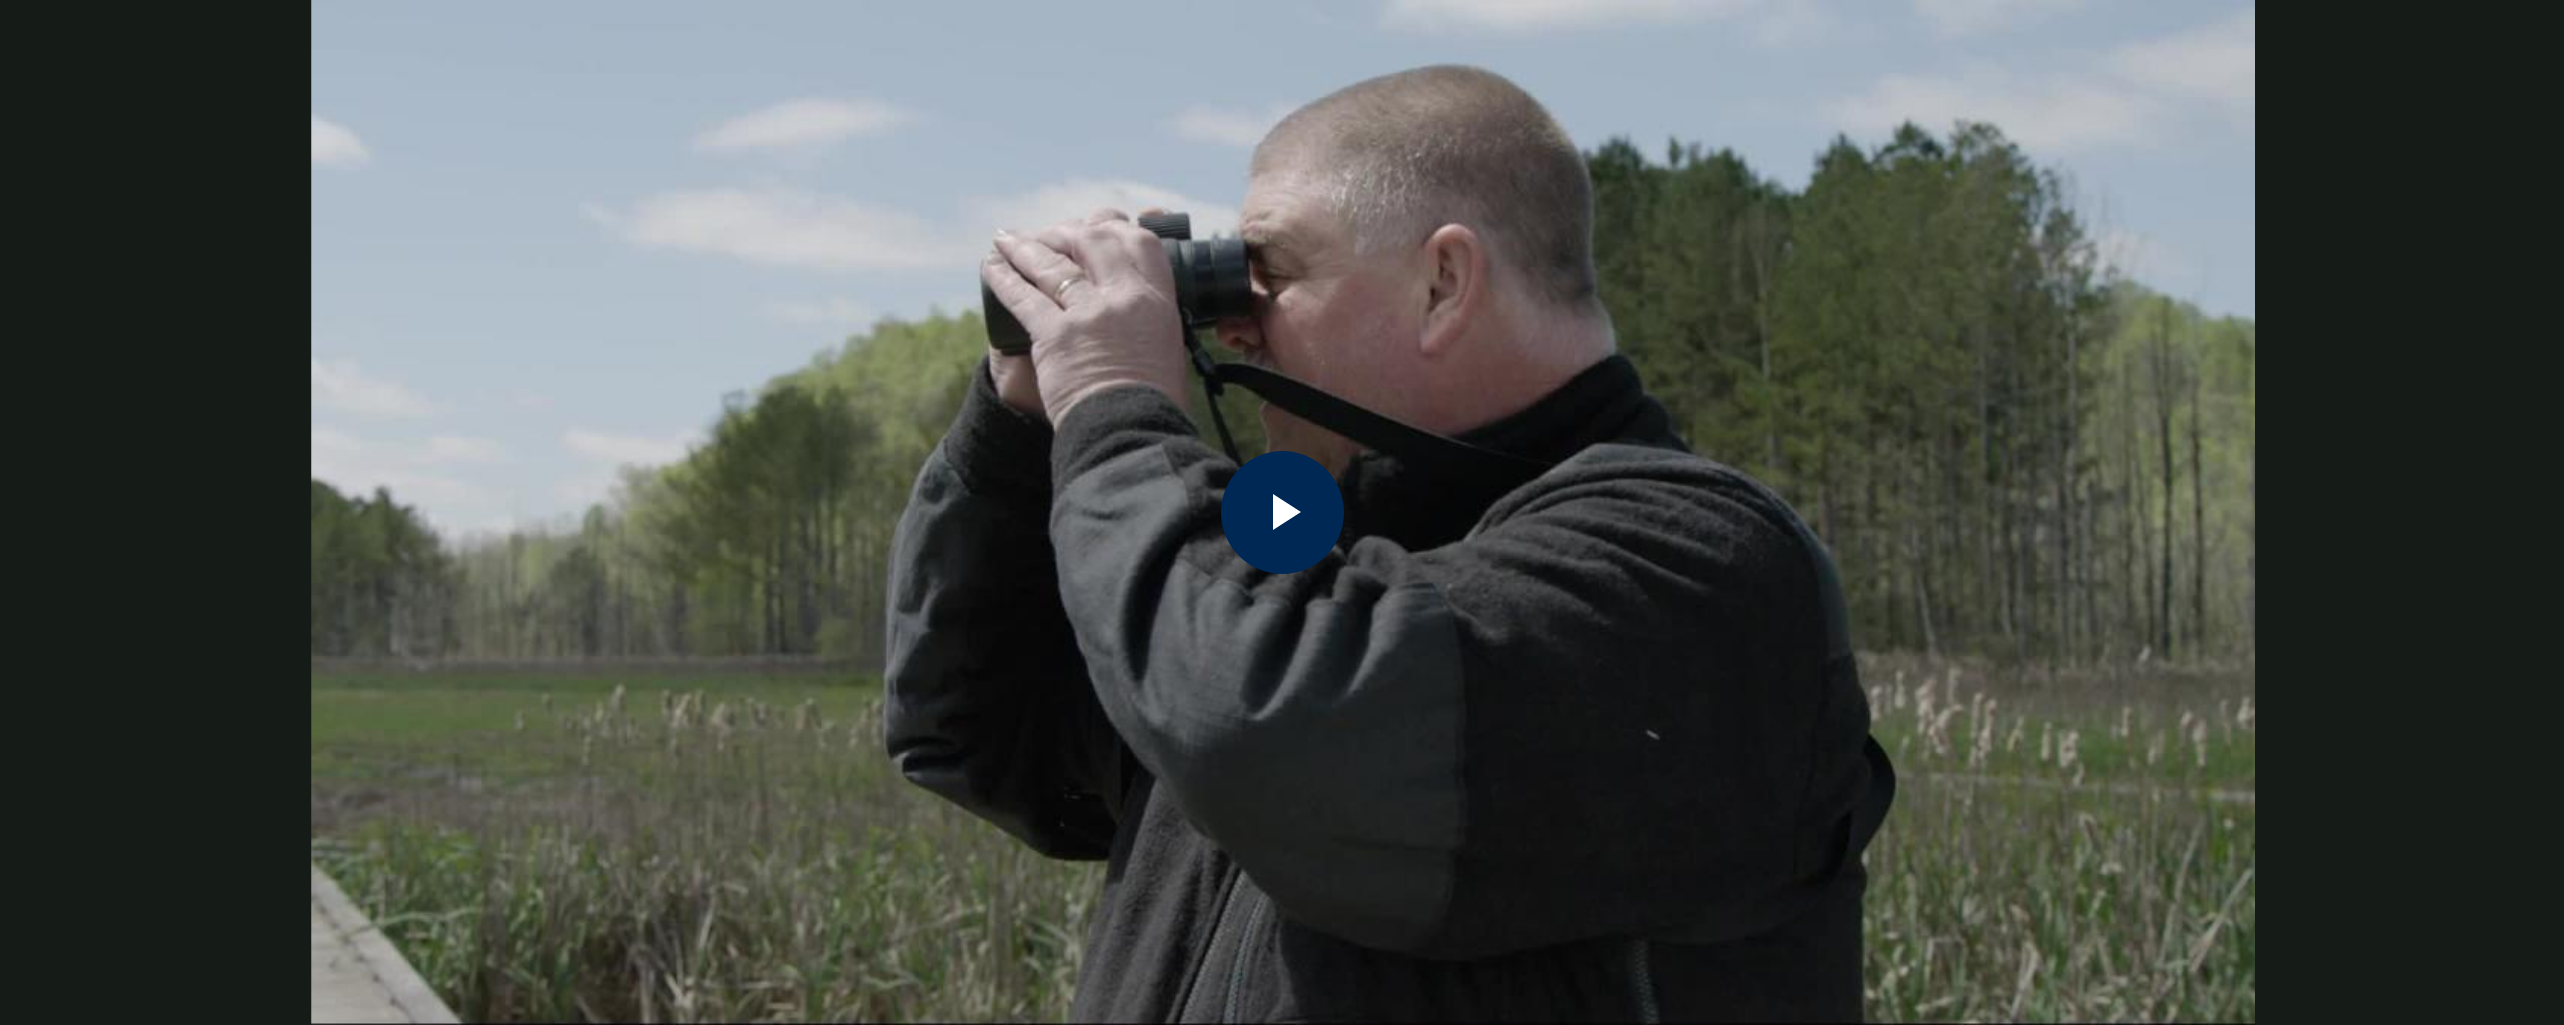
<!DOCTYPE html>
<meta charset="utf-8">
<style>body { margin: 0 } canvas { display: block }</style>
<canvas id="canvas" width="2564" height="1025"></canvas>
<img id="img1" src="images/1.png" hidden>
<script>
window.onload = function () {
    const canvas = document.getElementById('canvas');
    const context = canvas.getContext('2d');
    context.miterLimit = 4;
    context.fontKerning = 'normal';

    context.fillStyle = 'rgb(21, 27, 23)';
    context.fillRect(0, 0, 2564, 1025);
    context.drawImage(document.getElementById('img1'), 311, 0, 1944, 1025);
    context.fillStyle = 'rgb(0, 40, 85)';
    context.beginPath();
    context.arc(1282.5, 512.5, 61.5, 0, 2 * Math.PI);
    context.fill();
    context.fillStyle = 'rgb(255, 255, 255)';
    context.beginPath();
    context.moveTo(1273, 494);
    context.lineTo(1273, 530);
    context.lineTo(1301, 512);
    context.closePath();
    context.fill();
};
</script>
